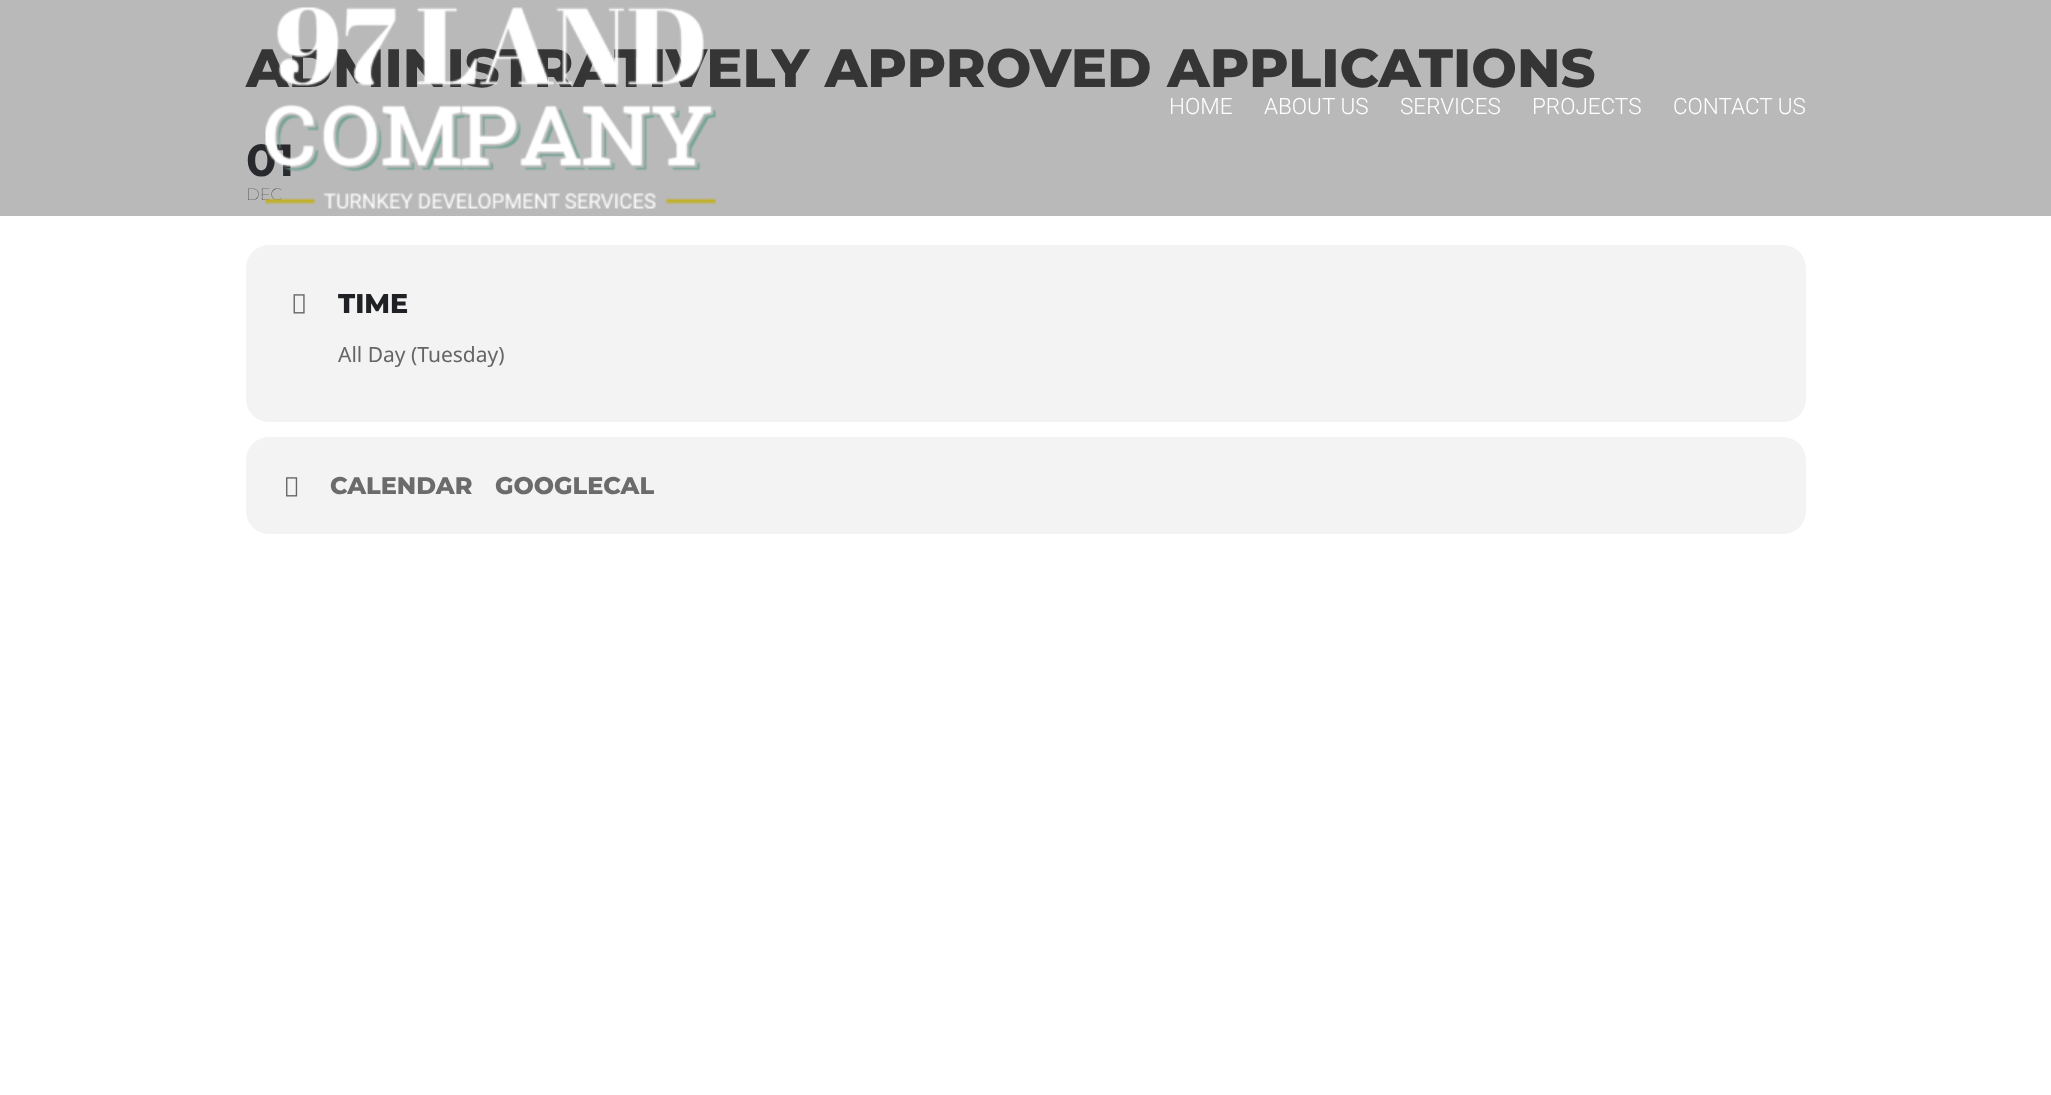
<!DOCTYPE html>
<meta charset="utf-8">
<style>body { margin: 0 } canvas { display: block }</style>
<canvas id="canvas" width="2051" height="1095"></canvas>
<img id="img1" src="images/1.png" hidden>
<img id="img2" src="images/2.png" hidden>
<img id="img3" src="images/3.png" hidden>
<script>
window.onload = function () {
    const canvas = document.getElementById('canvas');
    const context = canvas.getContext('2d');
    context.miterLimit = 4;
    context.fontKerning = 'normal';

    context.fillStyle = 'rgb(255, 255, 255)';
    context.fillRect(0, 0, 2051, 1095);
    context.fillStyle = 'rgb(185, 185, 186)';
    context.fillRect(0, 0, 2051, 216);
    context.fillStyle = 'rgb(243, 243, 243)';
    context.beginPath();
    context.roundRect(246, 245, 1560, 177, 23);
    context.fill();
    context.drawImage(document.getElementById('img1'), 293, 294, 12, 20);
    context.beginPath();
    context.roundRect(246, 437, 1560, 97, 23);
    context.fill();
    context.drawImage(document.getElementById('img2'), 286, 477, 12, 20);
    context.font = '800 54px Montserrat';
    context.fillStyle = 'rgb(53, 53, 53)';
    context.fillText('ADMINISTRATIVELY APPROVED APPLICATIONS', 246, 87);
    context.font = 'bold 45px Montserrat';
    context.fillStyle = 'rgb(40, 41, 44)';
    context.fillText('01', 246, 176);
    context.font = '100 16.5px Montserrat';
    context.fillText('DEC', 246, 200);
    context.font = '800 27px Montserrat';
    context.fillStyle = 'rgb(32, 33, 36)';
    context.fillText('TIME', 338, 313);
    context.font = '21px Noto Sans';
    context.fillStyle = 'rgb(101, 101, 101)';
    context.fillText('All Day (Tuesday)', 338, 362);
    context.font = '800 24px Montserrat';
    context.fillStyle = 'rgb(107, 107, 107)';
    context.fillText('CALENDAR', 330, 494);
    context.fillText('GOOGLECAL', 495, 494);
    context.drawImage(document.getElementById('img3'), 265, 7, 451, 202);
    context.font = '300 22.5px Roboto';
    context.fillStyle = 'rgb(255, 255, 255)';
    context.fillText('HOME', 1169, 114);
    context.fillText('ABOUT US', 1264, 114);
    context.fillText('SERVICES', 1400, 114);
    context.fillText('PROJECTS', 1532, 114);
    context.fillText('CONTACT US', 1673, 114);
};
</script>
